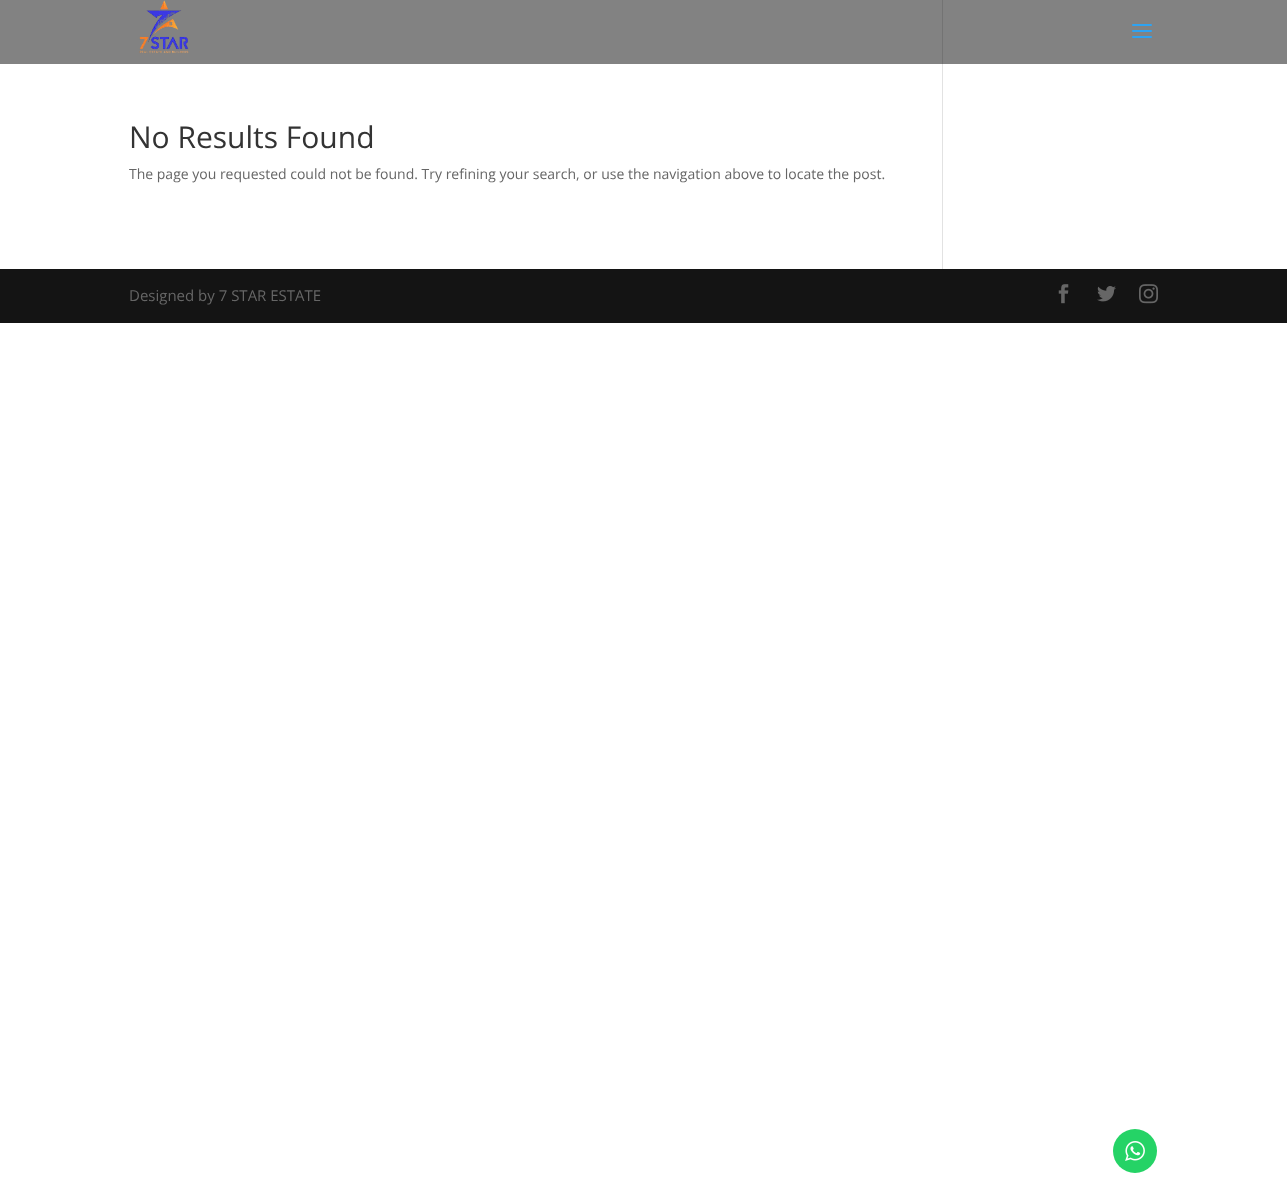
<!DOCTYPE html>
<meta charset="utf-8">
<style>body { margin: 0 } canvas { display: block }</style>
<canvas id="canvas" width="1287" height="1198"></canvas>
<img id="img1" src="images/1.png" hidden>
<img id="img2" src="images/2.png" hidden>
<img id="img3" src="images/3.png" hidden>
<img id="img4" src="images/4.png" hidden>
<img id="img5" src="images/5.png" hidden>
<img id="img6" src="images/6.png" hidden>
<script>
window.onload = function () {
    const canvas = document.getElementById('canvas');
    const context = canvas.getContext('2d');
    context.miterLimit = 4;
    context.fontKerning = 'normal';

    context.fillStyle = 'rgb(255, 255, 255)';
    context.fillRect(0, 0, 1287, 1198);
    context.fillStyle = 'rgb(130, 130, 130)';
    context.fillRect(0, 0, 1287, 64);
    context.drawImage(document.getElementById('img1'), 139, 0, 50, 54);
    context.drawImage(document.getElementById('img2'), 1132, 24, 20, 14);
    context.fillStyle = 'rgb(226, 226, 226)';
    context.fillRect(942, 64, 1, 205);
    context.fillStyle = 'rgb(115, 115, 115)';
    context.fillRect(942, 0, 1, 64);
    context.fillStyle = 'rgb(20, 20, 20)';
    context.fillRect(0, 269, 1287, 54);
    context.drawImage(document.getElementById('img3'), 1058, 284, 11, 20);
    context.drawImage(document.getElementById('img4'), 1097, 286, 19, 16);
    context.drawImage(document.getElementById('img5'), 1139, 284, 19, 20);
    context.fillStyle = 'rgb(37, 211, 102)';
    context.beginPath();
    context.arc(1135, 1151, 22, 0, 2 * Math.PI);
    context.fill();
    context.drawImage(document.getElementById('img6'), 1125, 1141, 20, 20);
    context.font = '30px Open Sans';
    context.fillStyle = 'rgb(51, 51, 51)';
    context.fillText('No Results Found', 129, 148);
    context.font = '14px Open Sans';
    context.fillStyle = 'rgb(102, 102, 102)';
    context.fillText('The page you requested could not be found. Try refining your search, or use the navigation above to locate the post.', 129, 179);
    context.font = '15px Open Sans';
    context.fillText('Designed by 7 STAR ESTATE', 129, 301);
};
</script>
